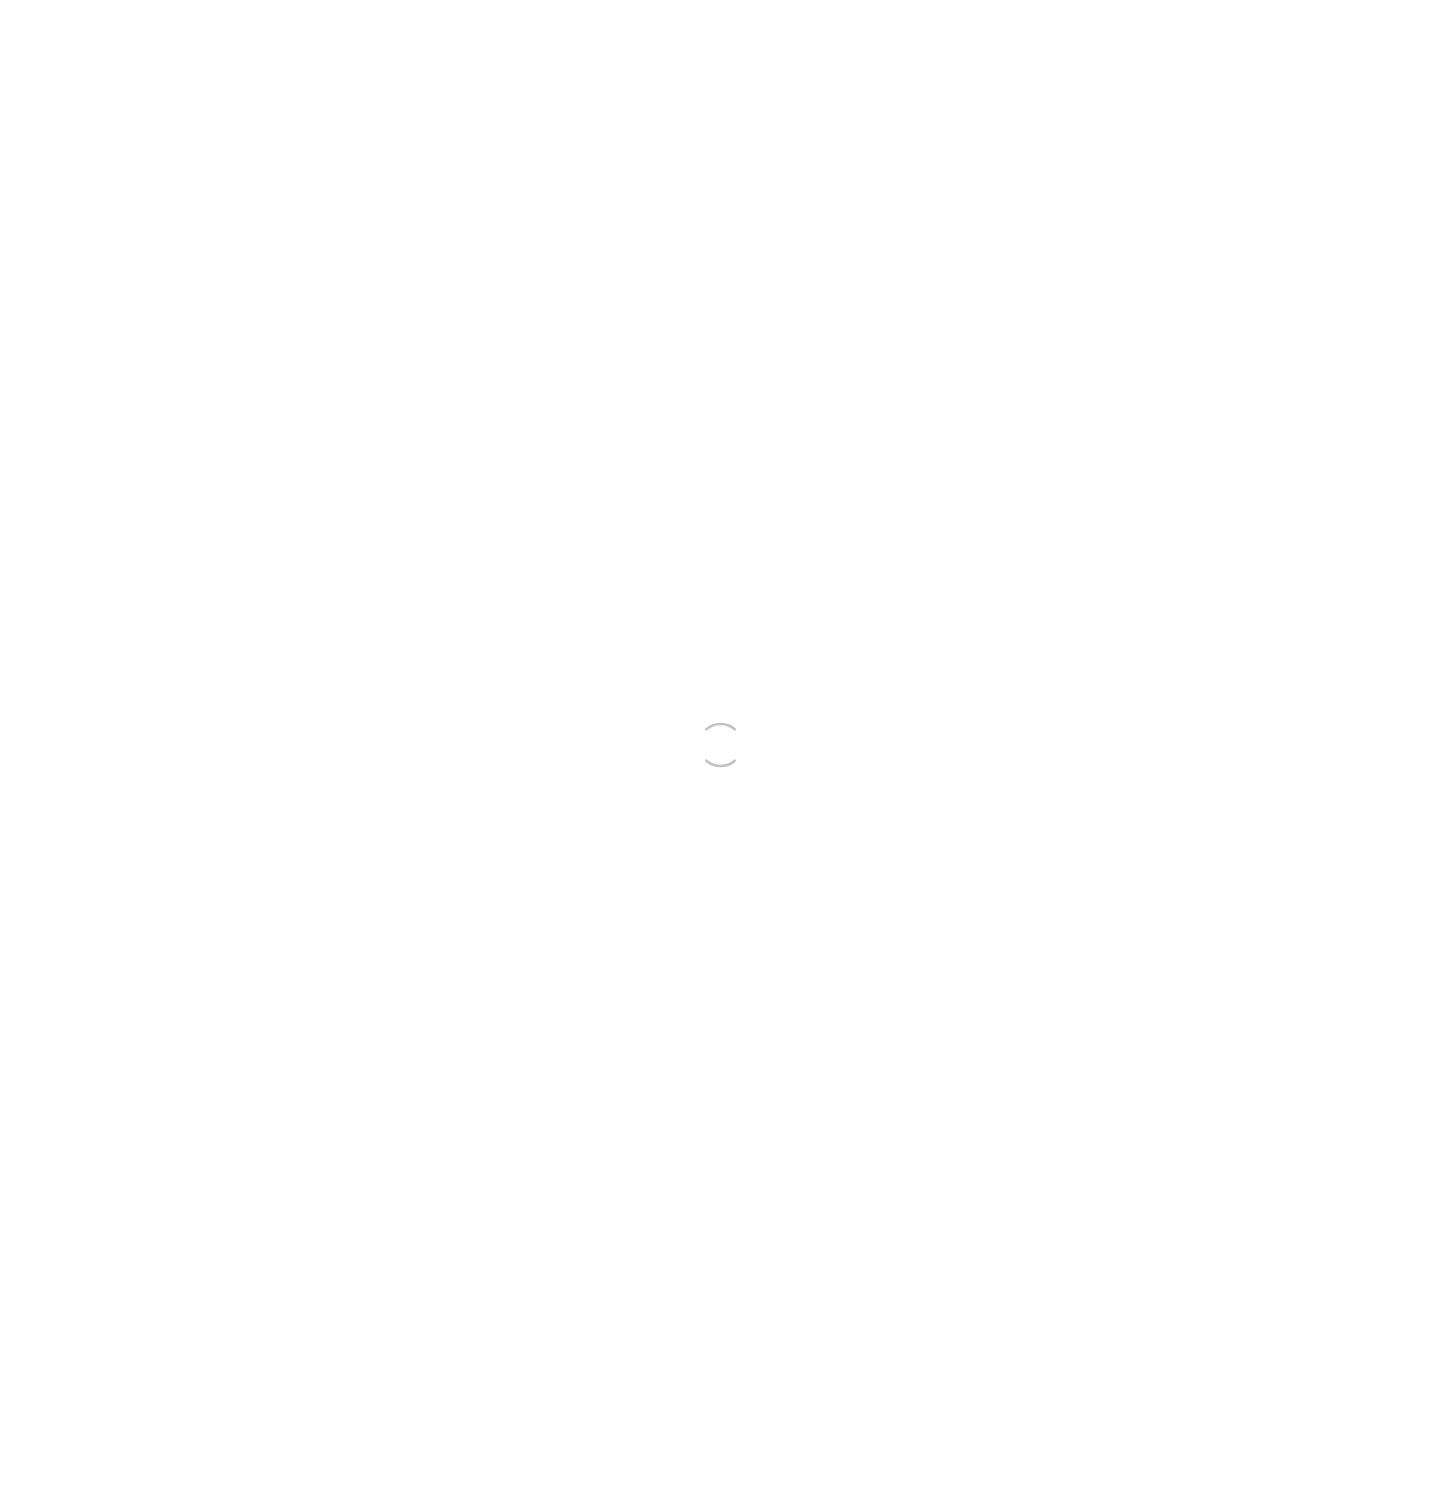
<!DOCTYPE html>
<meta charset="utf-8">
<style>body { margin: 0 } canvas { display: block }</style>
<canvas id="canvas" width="1441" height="1488"></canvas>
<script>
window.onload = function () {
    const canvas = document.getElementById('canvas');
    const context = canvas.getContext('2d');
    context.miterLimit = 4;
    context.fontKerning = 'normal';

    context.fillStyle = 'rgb(255, 255, 255)';
    context.fillRect(0, 0, 1441, 1488);
    context.beginPath();
    context.moveTo(705.5, 730);
    context.bezierCurveTo(714, 722, 727.5, 722, 735.5, 730);
    context.moveTo(735.5, 760);
    context.bezierCurveTo(727.5, 768, 714, 768, 705.5, 760);
    context.strokeStyle = 'rgb(195, 195, 195)';
    context.lineWidth = 2.5;
    context.stroke();
};
</script>
